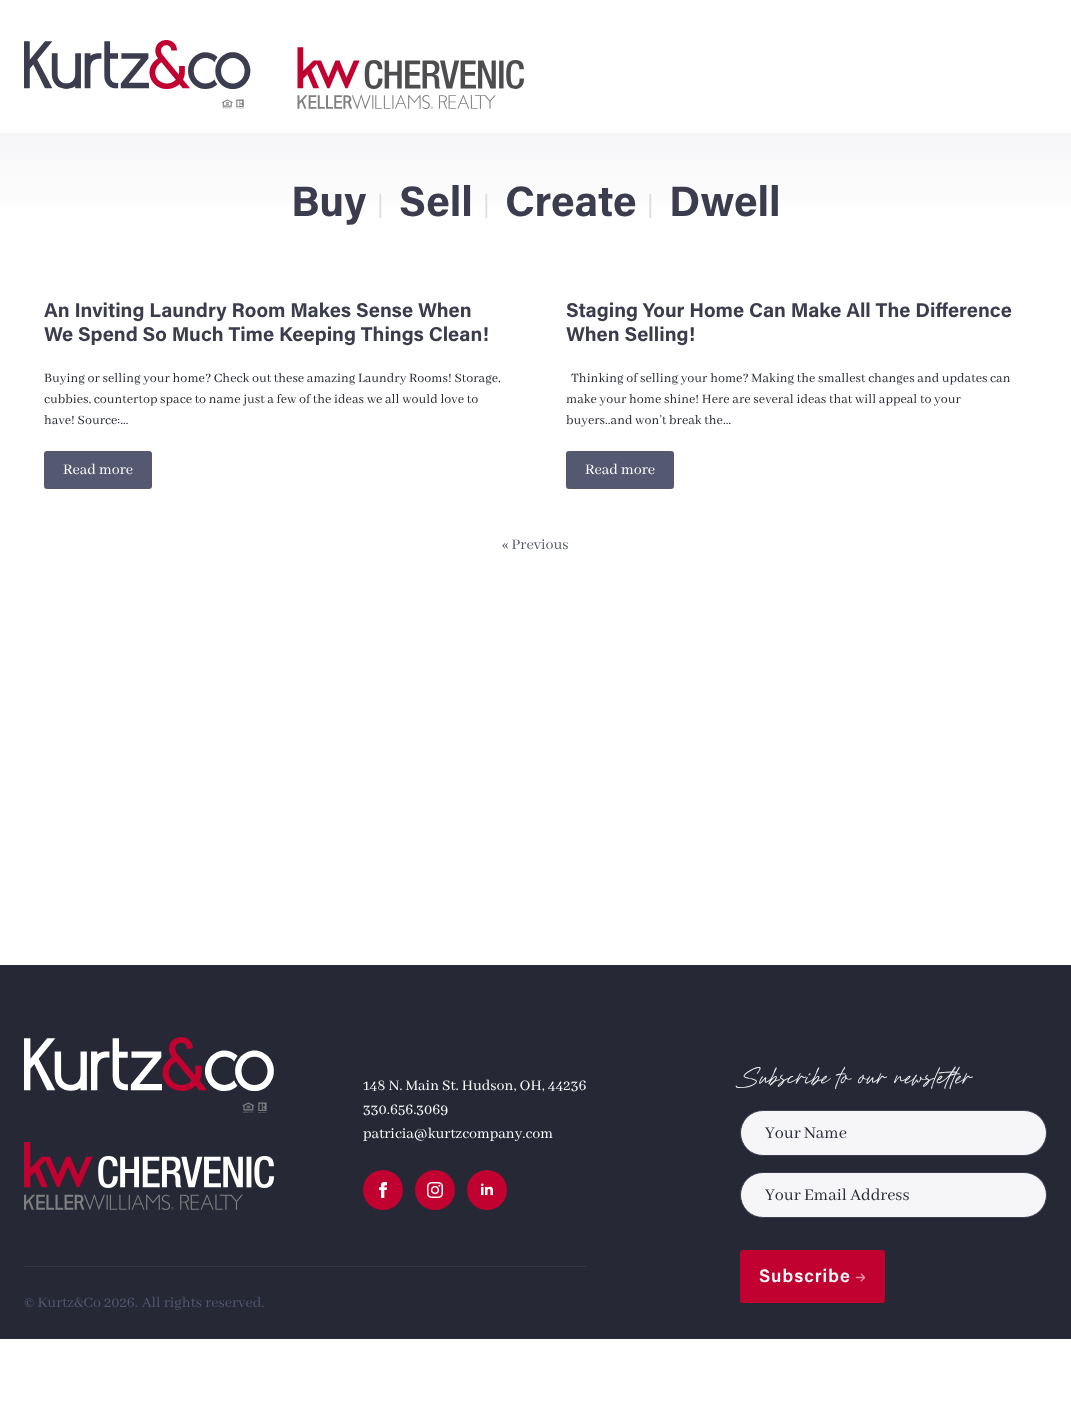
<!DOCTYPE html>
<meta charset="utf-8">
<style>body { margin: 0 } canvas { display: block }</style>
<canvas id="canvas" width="1071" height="1402"></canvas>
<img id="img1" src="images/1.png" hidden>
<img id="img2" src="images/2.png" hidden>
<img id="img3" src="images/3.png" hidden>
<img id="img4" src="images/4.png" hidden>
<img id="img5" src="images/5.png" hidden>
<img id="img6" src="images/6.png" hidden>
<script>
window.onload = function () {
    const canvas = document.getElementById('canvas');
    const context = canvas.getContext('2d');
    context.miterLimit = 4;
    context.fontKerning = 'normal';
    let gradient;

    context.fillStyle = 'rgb(255, 255, 255)';
    context.fillRect(0, 0, 1071, 1402);
    context.drawImage(document.getElementById('img1'), 24, 40, 500, 69);
    gradient = context.createLinearGradient(536, 133, 536, 264);
    gradient.addColorStop(0, 'rgb(246, 246, 248)');
    gradient.addColorStop(0.76, 'rgb(255, 255, 255)');
    context.fillStyle = gradient;
    context.fillRect(0, 133, 1071, 72);
    context.fillStyle = 'rgb(84, 88, 112)';
    context.beginPath();
    context.roundRect(44, 451, 108, 38, 3);
    context.fill();
    context.beginPath();
    context.roundRect(566, 451, 108, 38, 3);
    context.fill();
    context.fillStyle = 'rgb(38, 40, 54)';
    context.fillRect(0, 965, 1071, 374);
    context.drawImage(document.getElementById('img2'), 24, 1037, 250, 173);
    context.fillStyle = 'rgb(193, 2, 48)';
    context.beginPath();
    context.arc(383, 1190, 20, 0, 2 * Math.PI);
    context.fill();
    context.drawImage(document.getElementById('img3'), 379, 1182, 8, 16);
    context.beginPath();
    context.arc(435, 1190, 20, 0, 2 * Math.PI);
    context.fill();
    context.drawImage(document.getElementById('img4'), 427, 1182, 16, 16);
    context.beginPath();
    context.arc(487, 1190, 20, 0, 2 * Math.PI);
    context.fill();
    context.drawImage(document.getElementById('img5'), 481, 1183, 12, 12);
    context.fillStyle = 'rgb(53, 55, 68)';
    context.fillRect(24, 1266, 563, 1);
    context.fillStyle = 'rgb(246, 246, 248)';
    context.beginPath();
    context.roundRect(740.5, 1110.5, 306, 45, 22.5);
    context.fill();
    context.strokeStyle = 'rgb(59, 61, 78)';
    context.stroke();
    context.beginPath();
    context.roundRect(740.5, 1172.5, 306, 45, 22.5);
    context.fill();
    context.stroke();
    context.fillStyle = 'rgb(193, 2, 48)';
    context.beginPath();
    context.roundRect(740, 1250, 145, 53, 3);
    context.fill();
    context.drawImage(document.getElementById('img6'), 855, 1273, 11, 9);
    context.font = 'bold 42.5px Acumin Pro';
    context.fillStyle = 'rgb(59, 61, 78)';
    context.fillText('Buy', 291, 216);
    context.letterSpacing = '4px';
    context.font = '32px Abhaya Libre';
    context.fillStyle = 'rgb(221, 221, 226)';
    context.fillText('|', 376, 214);
    context.letterSpacing = '0px';
    context.font = 'bold 42.5px Acumin Pro';
    context.fillStyle = 'rgb(59, 61, 78)';
    context.fillText('Sell', 399, 216);
    context.letterSpacing = '4px';
    context.font = '32px Abhaya Libre';
    context.fillStyle = 'rgb(221, 221, 226)';
    context.fillText('|', 482, 214);
    context.letterSpacing = '0px';
    context.font = 'bold 42.5px Acumin Pro';
    context.fillStyle = 'rgb(59, 61, 78)';
    context.fillText('Create', 505, 216);
    context.letterSpacing = '4px';
    context.font = '32px Abhaya Libre';
    context.fillStyle = 'rgb(221, 221, 226)';
    context.fillText('|', 646, 214);
    context.letterSpacing = '0px';
    context.font = 'bold 42.5px Acumin Pro';
    context.fillStyle = 'rgb(59, 61, 78)';
    context.fillText('Dwell', 669, 216);
    context.font = 'bold 20px Acumin Pro';
    context.fillText('An Inviting Laundry Room Makes Sense When', 44, 317);
    context.fillText('We Spend So Much Time Keeping Things Clean!', 44, 341);
    context.font = '14px Abhaya Libre';
    context.fillStyle = 'rgb(38, 40, 54)';
    context.fillText('Buying or selling your home? Check out these amazing Laundry Rooms! Storage,', 44, 382);
    context.fillText('cubbies, countertop space to name just a few of the ideas we all would love to', 44, 403);
    context.fillText('have! Source:…', 44, 424);
    context.font = '16px Abhaya Libre';
    context.fillStyle = 'rgb(255, 255, 255)';
    context.fillText('Read more', 63, 474);
    context.font = 'bold 20px Acumin Pro';
    context.fillStyle = 'rgb(59, 61, 78)';
    context.fillText('Staging Your Home Can Make All The Difference', 566, 317);
    context.fillText('When Selling!', 566, 341);
    context.font = '14px Abhaya Libre';
    context.fillStyle = 'rgb(38, 40, 54)';
    context.fillText('Thinking of selling your home? Making the smallest changes and updates can', 571, 382);
    context.fillText('make your home shine! Here are several ideas that will appeal to your', 566, 403);
    context.fillText('buyers..and won’t break the…', 566, 424);
    context.font = '16px Abhaya Libre';
    context.fillStyle = 'rgb(255, 255, 255)';
    context.fillText('Read more', 585, 474);
    context.fillStyle = 'rgb(84, 88, 112)';
    context.fillText('« Previous', 502, 549);
    context.fillStyle = 'rgb(255, 255, 255)';
    context.fillText('148 N. Main St. Hudson, OH, 44236', 363, 1090);
    context.fillText('330.656.3069', 363, 1114);
    context.fillText('patricia@kurtzcompany.com', 363, 1138);
    context.fillStyle = 'rgb(84, 88, 112)';
    context.fillText('© Kurtz&Co 2026.', 24, 1307);
    context.fillText('All rights reserved.', 142, 1307);
    context.font = '28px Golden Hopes';
    context.fillStyle = 'rgb(246, 246, 248)';
    context.fillText('Subscribe to our newsletter', 740, 1089);
    context.font = '18px Abhaya Libre';
    context.fillStyle = 'rgb(38, 40, 54)';
    context.fillText('Your Name', 765, 1138);
    context.fillText('Your Email Address', 765, 1200);
    context.letterSpacing = '1px';
    context.font = '600 18px Acumin Pro';
    context.fillStyle = 'rgb(255, 255, 255)';
    context.fillText('Subscribe', 759, 1282);
};
</script>
